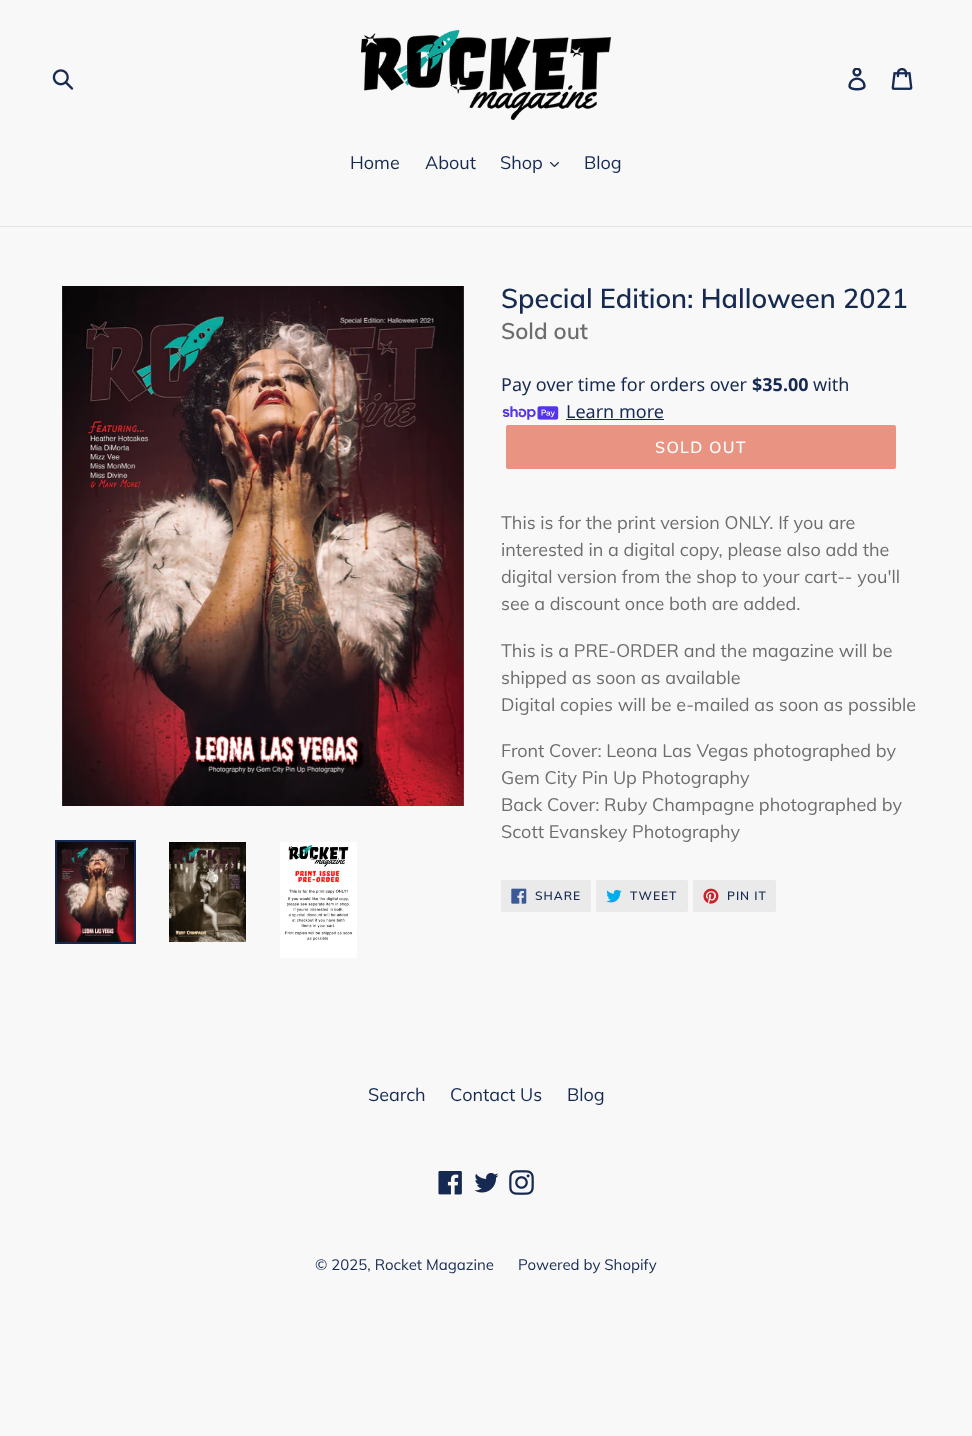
<!DOCTYPE html>
<meta charset="utf-8">
<style>body { margin: 0 } canvas { display: block }</style>
<canvas id="canvas" width="972" height="1436"></canvas>
<img id="img1" src="images/1.png" hidden>
<img id="img2" src="images/2.png" hidden>
<img id="img3" src="images/3.png" hidden>
<img id="img4" src="images/4.png" hidden>
<img id="img5" src="images/5.png" hidden>
<img id="img6" src="images/6.png" hidden>
<img id="img7" src="images/7.png" hidden>
<img id="img8" src="images/8.png" hidden>
<img id="img9" src="images/9.png" hidden>
<img id="img10" src="images/10.png" hidden>
<img id="img11" src="images/11.png" hidden>
<img id="img12" src="images/12.png" hidden>
<img id="img13" src="images/13.png" hidden>
<img id="img14" src="images/14.png" hidden>
<img id="img15" src="images/15.png" hidden>
<img id="img16" src="images/16.png" hidden>
<script>
window.onload = function () {
    const canvas = document.getElementById('canvas');
    const context = canvas.getContext('2d');
    context.miterLimit = 4;
    context.fontKerning = 'normal';

    context.fillStyle = 'rgb(248, 248, 248)';
    context.fillRect(0, 0, 972, 1436);
    context.drawImage(document.getElementById('img1'), 52, 69, 22, 21);
    context.drawImage(document.getElementById('img2'), 361, 30, 250, 90);
    context.drawImage(document.getElementById('img3'), 848, 68, 18, 23);
    context.drawImage(document.getElementById('img4'), 891, 68, 22, 22);
    context.fillStyle = 'rgb(228, 228, 228)';
    context.fillRect(0, 226, 972, 1);
    context.drawImage(document.getElementById('img5'), 550, 162, 9, 5);
    context.drawImage(document.getElementById('img6'), 62, 286, 402, 520);
    context.strokeStyle = 'rgb(22, 41, 80)';
    context.lineWidth = 2;
    context.strokeRect(56, 841, 79, 102);
    context.drawImage(document.getElementById('img7'), 57, 842, 77, 100);
    context.drawImage(document.getElementById('img8'), 169, 842, 77, 100);
    context.drawImage(document.getElementById('img9'), 280, 842, 77, 116);
    context.drawImage(document.getElementById('img10'), 502, 406, 57, 14);
    context.fillStyle = 'rgb(22, 41, 80)';
    context.fillRect(566, 419, 98, 1);
    context.fillStyle = 'rgb(233, 148, 130)';
    context.beginPath();
    context.roundRect(506, 425, 390, 44, 2);
    context.fill();
    context.fillStyle = 'rgb(234, 234, 234)';
    context.beginPath();
    context.roundRect(501, 880, 90, 32, 2);
    context.fill();
    context.drawImage(document.getElementById('img11'), 511, 888, 16, 16);
    context.beginPath();
    context.roundRect(596, 880, 92, 32, 2);
    context.fill();
    context.drawImage(document.getElementById('img12'), 606, 889, 16, 14);
    context.beginPath();
    context.roundRect(693, 880, 83, 32, 2);
    context.fill();
    context.drawImage(document.getElementById('img13'), 703, 888, 16, 16);
    context.drawImage(document.getElementById('img14'), 438, 1171, 24, 24);
    context.drawImage(document.getElementById('img15'), 474, 1173, 25, 20);
    context.drawImage(document.getElementById('img16'), 509, 1170, 25, 25);
    context.font = '18px Muli';
    context.fillStyle = 'rgb(22, 41, 80)';
    context.fillText('Home', 350, 169);
    context.fillText('About', 425, 169);
    context.fillText('Shop', 500, 169);
    context.fillText('Blog', 584, 169);
    context.font = '600 27px Muli';
    context.fillText('Special Edition: Halloween 2021', 501, 308);
    context.font = '600 22.5px Muli';
    context.fillStyle = 'rgb(109, 109, 109)';
    context.fillText('Sold out', 501, 339);
    context.font = '18px Noto Sans';
    context.fillStyle = 'rgb(22, 41, 80)';
    context.fillText('Pay over time for orders over', 501, 391);
    context.font = 'bold 18px Noto Sans';
    context.fillText('$35.00', 752, 391);
    context.font = '18px Noto Sans';
    context.fillText('with', 813, 391);
    context.fillText('Learn more', 566, 418);
    context.letterSpacing = '1.25px';
    context.font = '600 16px Muli';
    context.fillStyle = 'rgb(252, 252, 252)';
    context.fillText('SOLD OUT', 655, 453);
    context.letterSpacing = '0px';
    context.font = '18px Muli';
    context.fillStyle = 'rgb(109, 109, 109)';
    context.fillText('This is for the print version ONLY. If you are', 501, 529);
    context.fillText('interested in a digital copy, please also add the', 501, 556);
    context.fillText('digital version from the shop to your cart-- you\'ll', 501, 583);
    context.fillText('see a discount once both are added.', 501, 610);
    context.fillText('This is a PRE-ORDER and the magazine will be', 501, 657);
    context.fillText('shipped as soon as available', 501, 684);
    context.fillText('Digital copies will be e-mailed as soon as possible', 501, 711);
    context.fillText('Front Cover: Leona Las Vegas photographed by', 501, 757);
    context.fillText('Gem City Pin Up Photography', 501, 784);
    context.fillText('Back Cover: Ruby Champagne photographed by', 501, 811);
    context.fillText('Scott Evanskey Photography', 501, 838);
    context.letterSpacing = '1px';
    context.font = '600 12px Muli';
    context.fillStyle = 'rgb(22, 41, 80)';
    context.fillText('SHARE', 535, 900);
    context.fillText('TWEET', 630, 900);
    context.fillText('PIN IT', 727, 900);
    context.letterSpacing = '0px';
    context.font = '18px Muli';
    context.fillText('Search', 368, 1101);
    context.fillText('Contact Us', 450, 1101);
    context.fillText('Blog', 567, 1101);
    context.font = '15px Muli';
    context.fillText('© 2025, Rocket Magazine', 315, 1270);
    context.fillText('Powered by Shopify', 518, 1270);
};
</script>
